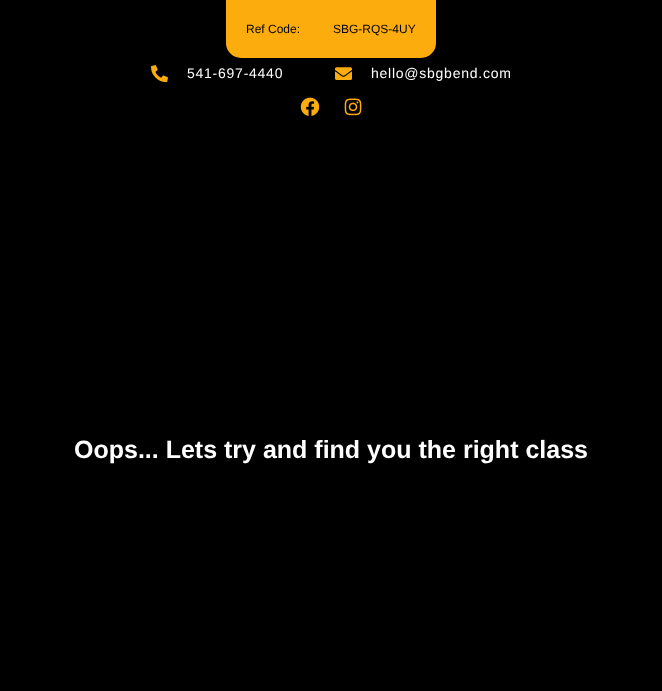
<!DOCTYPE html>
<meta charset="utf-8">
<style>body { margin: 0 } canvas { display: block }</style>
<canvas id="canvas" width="662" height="691"></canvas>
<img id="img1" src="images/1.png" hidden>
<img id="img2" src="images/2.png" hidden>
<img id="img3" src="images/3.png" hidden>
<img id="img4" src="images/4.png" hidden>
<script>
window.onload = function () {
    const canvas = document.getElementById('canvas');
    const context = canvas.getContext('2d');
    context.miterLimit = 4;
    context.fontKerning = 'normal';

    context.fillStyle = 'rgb(0, 0, 0)';
    context.fillRect(0, 0, 662, 691);
    context.fillStyle = 'rgb(252, 173, 13)';
    context.beginPath();
    context.roundRect(226, 0, 210, 58, [0, 0, 15, 15]);
    context.fill();
    context.drawImage(document.getElementById('img1'), 151, 65, 17, 18);
    context.drawImage(document.getElementById('img2'), 335, 67, 17, 13);
    context.drawImage(document.getElementById('img3'), 300, 97, 20, 19);
    context.drawImage(document.getElementById('img4'), 344, 98, 18, 18);
    context.font = '12px Liberation Sans';
    context.fillStyle = 'rgb(0, 0, 0)';
    context.fillText('Ref Code:', 246, 33);
    context.fillText('SBG-RQS-4UY', 333, 33);
    context.letterSpacing = '0.75px';
    context.font = '14px Liberation Sans';
    context.fillStyle = 'rgb(255, 255, 255)';
    context.fillText('541-697-4440', 187, 78);
    context.fillText('hello@sbgbend.com', 371, 78);
    context.letterSpacing = '0px';
    context.font = 'bold 25px Liberation Sans';
    context.fillText('Oops... Lets try and find you the right class', 74, 458);
};
</script>
